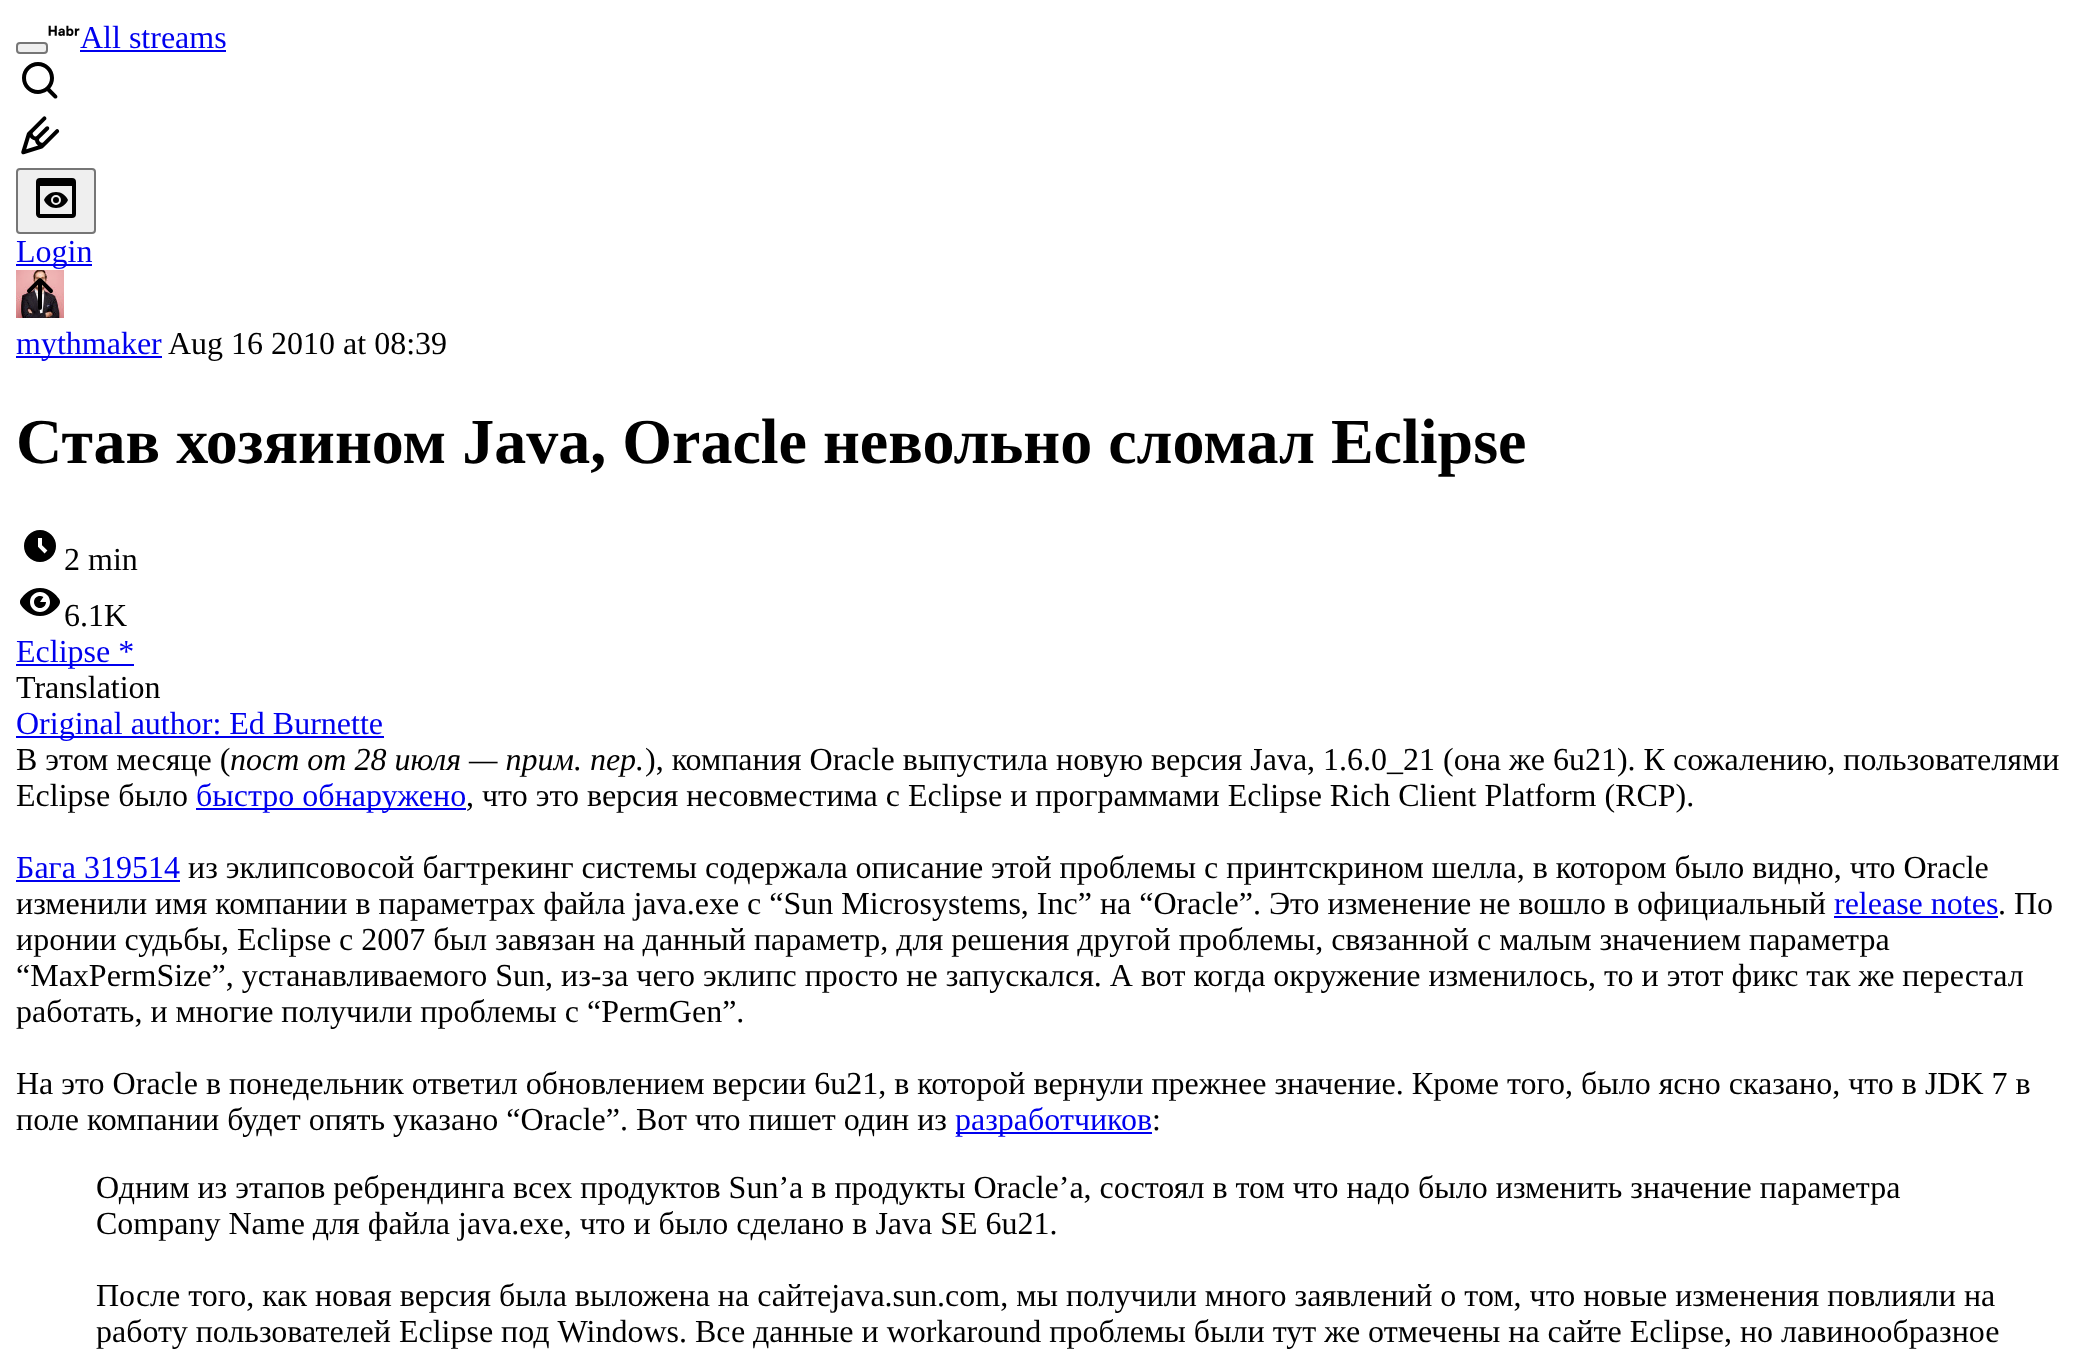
<!DOCTYPE html>
<meta charset="utf-8">
<style>body { margin: 0 } canvas { display: block }</style>
<canvas id="canvas" width="2095" height="1355"></canvas>
<img id="img1" src="images/1.png" hidden>
<img id="img2" src="images/2.png" hidden>
<img id="img3" src="images/3.png" hidden>
<img id="img4" src="images/4.png" hidden>
<img id="img5" src="images/6.png" hidden>
<img id="img6" src="images/5.png" hidden>
<img id="img7" src="images/7.png" hidden>
<img id="img8" src="images/8.png" hidden>
<script>
window.onload = function () {
    const canvas = document.getElementById('canvas');
    const context = canvas.getContext('2d');
    context.miterLimit = 4;
    context.fontKerning = 'normal';

    context.fillStyle = 'rgb(255, 255, 255)';
    context.fillRect(0, 0, 2095, 1355);
    context.fillStyle = 'rgb(239, 239, 239)';
    context.beginPath();
    context.roundRect(17, 43, 30, 10, 3);
    context.fill();
    context.strokeStyle = 'rgb(118, 118, 118)';
    context.lineWidth = 2;
    context.stroke();
    context.drawImage(document.getElementById('img1'), 48, 25, 32, 11);
    context.fillStyle = 'rgb(0, 0, 238)';
    context.fillRect(80, 50, 146, 2);
    context.drawImage(document.getElementById('img2'), 22, 62, 36, 37);
    context.drawImage(document.getElementById('img3'), 21, 116, 39, 39);
    context.fillStyle = 'rgb(239, 239, 239)';
    context.beginPath();
    context.roundRect(17, 169, 78, 64, 3);
    context.fill();
    context.stroke();
    context.drawImage(document.getElementById('img4'), 36, 178, 40, 40);
    context.fillStyle = 'rgb(0, 0, 238)';
    context.fillRect(16, 264, 76, 2);
    context.drawImage(document.getElementById('img5'), 16, 270, 48, 48);
    context.drawImage(document.getElementById('img6'), 27, 278, 26, 32);
    context.fillRect(16, 356, 146, 2);
    context.drawImage(document.getElementById('img7'), 24, 530, 32, 32);
    context.drawImage(document.getElementById('img8'), 20, 588, 40, 28);
    context.fillRect(16, 664, 118, 2);
    context.fillRect(16, 736, 368, 2);
    context.fillRect(196, 808, 270, 2);
    context.fillRect(16, 880, 164, 2);
    context.fillRect(1834, 916, 164, 2);
    context.fillRect(956, 1132, 196, 2);
    context.font = '32px Liberation Serif';
    context.fillText('All streams', 80, 48);
    context.fillText('Login', 16, 262);
    context.fillText('mythmaker', 16, 354);
    context.fillStyle = 'rgb(0, 0, 0)';
    context.fillText('Aug 16 2010 at 08:39', 168, 354);
    context.font = 'bold 64px Liberation Serif';
    context.fillText('Став хозяином Java, Oracle невольно сломал Eclipse', 16, 463);
    context.font = '32px Liberation Serif';
    context.fillText('2 min', 64, 570);
    context.fillText('6.1K', 64, 626);
    context.fillStyle = 'rgb(0, 0, 238)';
    context.fillText('Eclipse *', 16, 662);
    context.fillStyle = 'rgb(0, 0, 0)';
    context.fillText('Translation', 16, 698);
    context.fillStyle = 'rgb(0, 0, 238)';
    context.fillText('Original author: Ed Burnette', 16, 734);
    context.fillStyle = 'rgb(0, 0, 0)';
    context.fillText('В этом месяце (', 16, 770);
    context.font = 'italic 32px Liberation Serif';
    context.fillText('пост от 28 июля — прим. пер.', 230, 770);
    context.font = '32px Liberation Serif';
    context.fillText('), компания Oracle выпустила новую версия Java, 1.6.0_21 (она же 6u21). К сожалению, пользователями', 645, 770);
    context.fillText('Eclipse было', 16, 806);
    context.fillStyle = 'rgb(0, 0, 238)';
    context.fillText('быстро обнаружено', 196, 806);
    context.fillStyle = 'rgb(0, 0, 0)';
    context.fillText(', что это версия несовместима с Eclipse и программами Eclipse Rich Client Platform (RCP).', 466, 806);
    context.fillStyle = 'rgb(0, 0, 238)';
    context.fillText('Бага 319514', 16, 878);
    context.fillStyle = 'rgb(0, 0, 0)';
    context.fillText('из эклипсовосой багтрекинг системы cодержала описание этой проблемы с принтскрином шелла, в котором было видно, что Oracle', 188, 878);
    context.fillText('изменили имя компании в параметрах файла java.exe с “Sun Microsystems, Inc” на “Oracle”. Это изменение не вошло в официальный', 16, 914);
    context.fillStyle = 'rgb(0, 0, 238)';
    context.fillText('release notes', 1834, 914);
    context.fillStyle = 'rgb(0, 0, 0)';
    context.fillText('. По', 1998, 914);
    context.fillText('иронии судьбы, Eclipse с 2007 был завязан на данный параметр, для решения другой проблемы, связанной с малым значением параметра', 16, 950);
    context.fillText('“MaxPermSize”, устанавливаемого Sun, из-за чего эклипс просто не запускался. А вот когда окружение изменилось, то и этот фикс так же перестал', 16, 986);
    context.fillText('работать, и многие получили проблемы с “PermGen”.', 16, 1022);
    context.fillText('На это Oracle в понедельник ответил обновлением версии 6u21, в которой вернули прежнее значение. Кроме того, было ясно сказано, что в JDK 7 в', 16, 1094);
    context.fillText('поле компании будет опять указано “Oracle”. Вот что пишет один из', 16, 1130);
    context.fillStyle = 'rgb(0, 0, 238)';
    context.fillText('разработчиков', 955, 1130);
    context.fillStyle = 'rgb(0, 0, 0)';
    context.fillText(':', 1152, 1130);
    context.fillText('Одним из этапов ребрендинга всех продуктов Sun’а в продукты Oracle’а, состоял в том что надо было изменить значение параметра', 96, 1198);
    context.fillText('Company Name для файла java.exe, что и было сделано в Java SE 6u21.', 96, 1234);
    context.fillText('После того, как новая версия была выложена на сайтеjava.sun.com, мы получили много заявлений о том, что новые изменения повлияли на', 96, 1306);
    context.fillText('работу пользователей Eclipse под Windows. Все данные и workaround проблемы были тут же отмечены на сайте Eclipse, но лавинообразное', 96, 1342);
};
</script>
